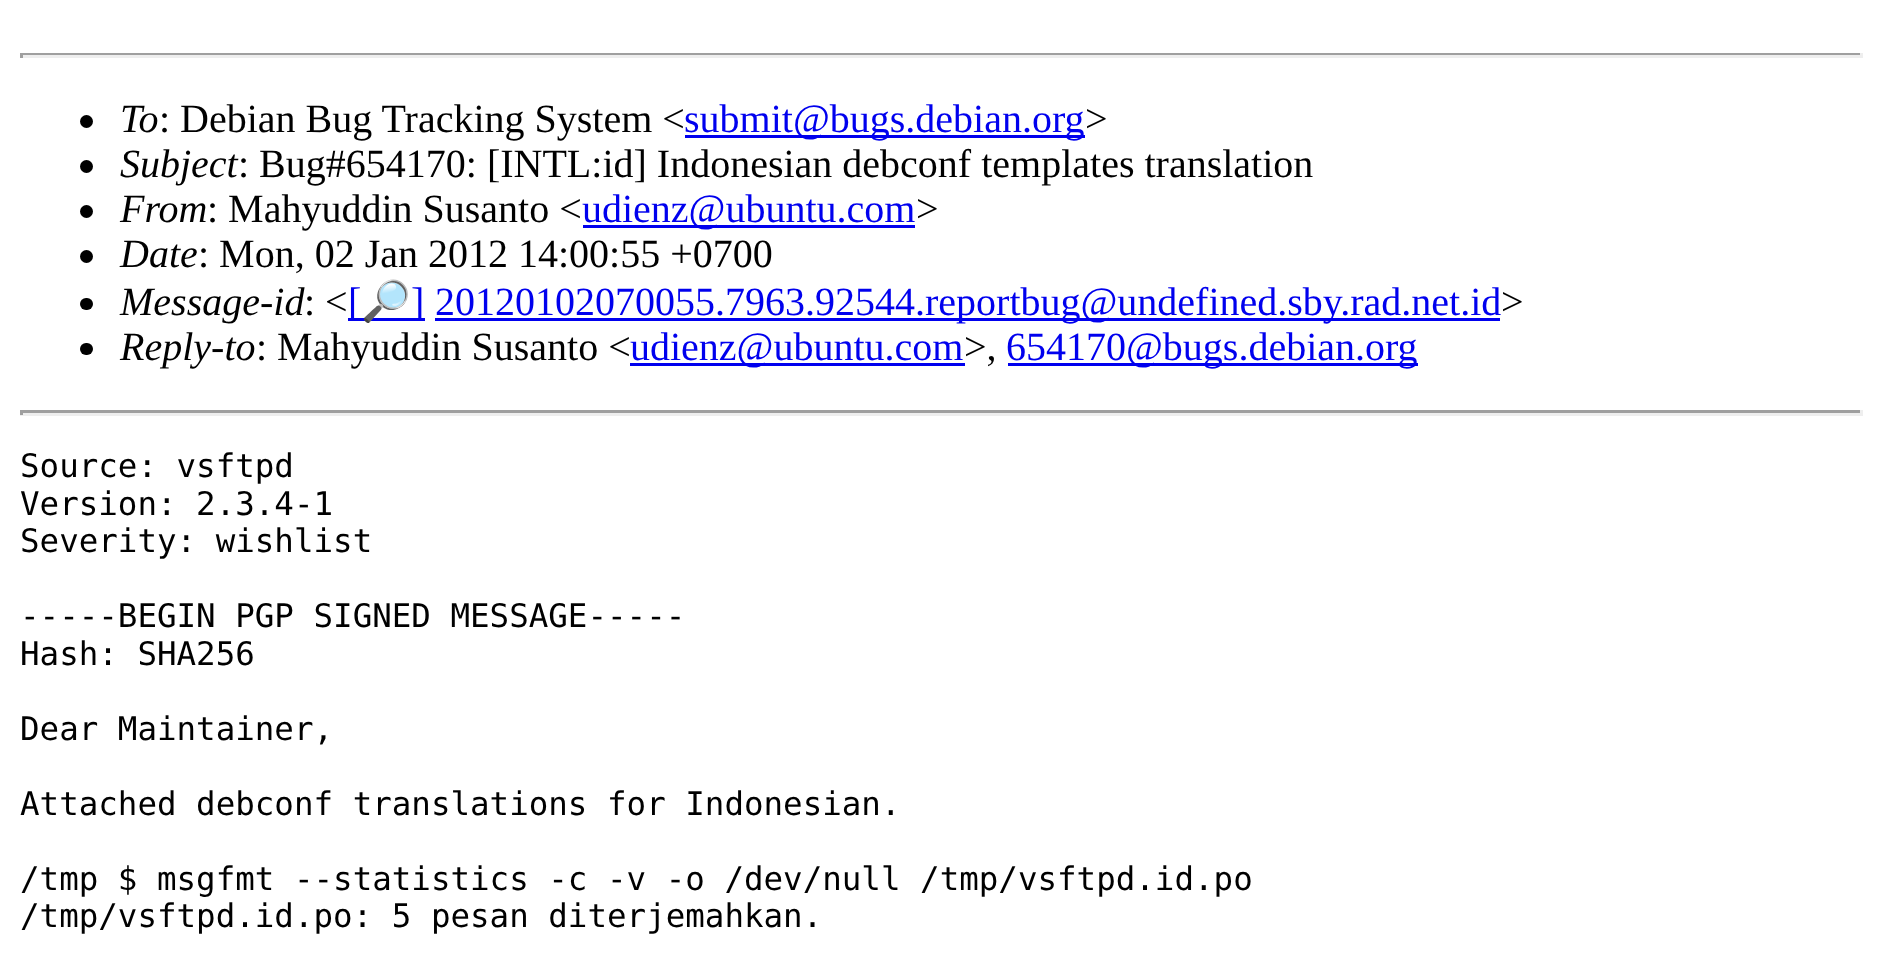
<!DOCTYPE html>
<meta charset="utf-8">
<style>body { margin: 0 } canvas { display: block }</style>
<canvas id="canvas" width="1882" height="956"></canvas>
<script>
window.onload = function () {
    const canvas = document.getElementById('canvas');
    const context = canvas.getContext('2d');
    context.miterLimit = 4;
    context.fontKerning = 'normal';

    context.fillStyle = 'rgb(255, 255, 255)';
    context.fillRect(0, 0, 1882, 956);
    context.fillStyle = 'rgb(159, 159, 159)';
    context.fillRect(20, 53, 1843, 2);
    context.fillStyle = 'rgb(238, 238, 238)';
    context.fillRect(1860, 53, 3, 5);
    context.fillRect(20, 55, 1843, 3);
    context.fillStyle = 'rgb(159, 159, 159)';
    context.fillRect(20, 53, 3, 5);
    context.fillStyle = 'rgb(0, 0, 0)';
    context.beginPath();
    context.arc(86.5, 121.5, 6.5, 0, 2 * Math.PI);
    context.fill();
    context.fillStyle = 'rgb(0, 0, 238)';
    context.fillRect(685, 135, 400, 3);
    context.fillStyle = 'rgb(0, 0, 0)';
    context.beginPath();
    context.arc(86.5, 166.5, 6.5, 0, 2 * Math.PI);
    context.fill();
    context.beginPath();
    context.arc(86.5, 211.5, 6.5, 0, 2 * Math.PI);
    context.fill();
    context.fillStyle = 'rgb(0, 0, 238)';
    context.fillRect(583, 225, 332, 3);
    context.fillStyle = 'rgb(0, 0, 0)';
    context.beginPath();
    context.arc(86.5, 256.5, 6.5, 0, 2 * Math.PI);
    context.fill();
    context.beginPath();
    context.roundRect(80, 298, 13, 12, 6);
    context.fill();
    context.fillStyle = 'rgb(0, 0, 238)';
    context.fillRect(348, 318, 77, 3);
    context.fillRect(435, 318, 1065, 3);
    context.fillStyle = 'rgb(0, 0, 0)';
    context.beginPath();
    context.roundRect(80, 343, 13, 12, 6);
    context.fill();
    context.fillStyle = 'rgb(0, 0, 238)';
    context.fillRect(630, 363, 335, 3);
    context.fillRect(1008, 363, 410, 3);
    context.fillStyle = 'rgb(159, 159, 159)';
    context.fillRect(20, 410, 1843, 3);
    context.fillStyle = 'rgb(238, 238, 238)';
    context.fillRect(1860, 410, 3, 5);
    context.fillRect(20, 413, 1843, 3);
    context.fillStyle = 'rgb(159, 159, 159)';
    context.fillRect(20, 410, 3, 5);
    context.font = 'italic 40px Liberation Serif';
    context.fillStyle = 'rgb(0, 0, 0)';
    context.fillText('To', 120, 132);
    context.font = '40px Liberation Serif';
    context.fillText(': Debian Bug Tracking System <', 159, 132);
    context.fillStyle = 'rgb(0, 0, 238)';
    context.fillText('submit@bugs.debian.org', 684, 132);
    context.fillStyle = 'rgb(0, 0, 0)';
    context.fillText('>', 1085, 132);
    context.font = 'italic 40px Liberation Serif';
    context.fillText('Subject', 120, 177);
    context.font = '40px Liberation Serif';
    context.fillText(': Bug#654170: [INTL:id] Indonesian debconf templates translation', 238, 177);
    context.font = 'italic 40px Liberation Serif';
    context.fillText('From', 120, 222);
    context.font = '40px Liberation Serif';
    context.fillText(': Mahyuddin Susanto <', 207, 222);
    context.fillStyle = 'rgb(0, 0, 238)';
    context.fillText('udienz@ubuntu.com', 582, 222);
    context.fillStyle = 'rgb(0, 0, 0)';
    context.fillText('>', 916, 222);
    context.font = 'italic 40px Liberation Serif';
    context.fillText('Date', 120, 267);
    context.font = '40px Liberation Serif';
    context.fillText(': Mon, 02 Jan 2012 14:00:55 +0700', 198, 267);
    context.font = 'italic 40px Liberation Serif';
    context.fillText('Message-id', 120, 315);
    context.font = '40px Liberation Serif';
    context.fillText(': <', 304, 315);
    context.fillStyle = 'rgb(0, 0, 238)';
    context.fillText('[', 348, 315);
    context.font = '40px Noto Color Emoji';
    context.fillText('🔎', 361, 315);
    context.font = '40px Liberation Serif';
    context.fillText(']', 411, 315);
    context.fillText('20120102070055.7963.92544.reportbug@undefined.sby.rad.net.id', 435, 315);
    context.fillStyle = 'rgb(0, 0, 0)';
    context.fillText('>', 1501, 315);
    context.font = 'italic 40px Liberation Serif';
    context.fillText('Reply-to', 120, 360);
    context.font = '40px Liberation Serif';
    context.fillText(': Mahyuddin Susanto <', 256, 360);
    context.fillStyle = 'rgb(0, 0, 238)';
    context.fillText('udienz@ubuntu.com', 630, 360);
    context.fillStyle = 'rgb(0, 0, 0)';
    context.fillText('>,', 964, 360);
    context.fillStyle = 'rgb(0, 0, 238)';
    context.fillText('654170@bugs.debian.org', 1006, 360);
    context.font = '32.5px DejaVu Sans Mono';
    context.fillStyle = 'rgb(0, 0, 0)';
    context.fillText('Source: vsftpd', 20, 477);
    context.fillText('Version: 2.3.4-1', 20, 515);
    context.fillText('Severity: wishlist', 20, 552);
    context.fillText('-----BEGIN PGP SIGNED MESSAGE-----', 20, 627);
    context.fillText('Hash: SHA256', 20, 665);
    context.fillText('Dear Maintainer,', 20, 740);
    context.fillText('Attached debconf translations for Indonesian.', 20, 815);
    context.fillText('/tmp $ msgfmt --statistics -c -v -o /dev/null /tmp/vsftpd.id.po', 20, 890);
    context.fillText('/tmp/vsftpd.id.po: 5 pesan diterjemahkan.', 20, 927);
};
</script>
